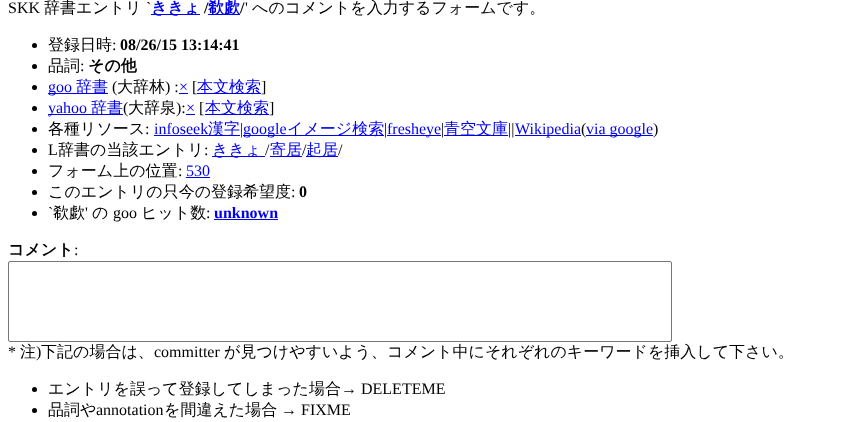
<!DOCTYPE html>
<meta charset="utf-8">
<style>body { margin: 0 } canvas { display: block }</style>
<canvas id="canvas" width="845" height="422"></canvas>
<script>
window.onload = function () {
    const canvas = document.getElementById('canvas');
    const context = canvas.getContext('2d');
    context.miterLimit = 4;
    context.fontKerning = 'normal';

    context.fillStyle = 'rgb(255, 255, 255)';
    context.fillRect(0, 0, 845, 422);
    context.fillStyle = 'rgb(0, 0, 238)';
    context.fillRect(151, 14, 49, 1);
    context.fillRect(208, 14, 32, 1);
    context.fillStyle = 'rgb(0, 0, 0)';
    context.beginPath();
    context.arc(34.5, 45.5, 2.5, 0, 2 * Math.PI);
    context.fill();
    context.beginPath();
    context.arc(34.5, 66.5, 2.5, 0, 2 * Math.PI);
    context.fill();
    context.beginPath();
    context.arc(34.5, 87.5, 2.5, 0, 2 * Math.PI);
    context.fill();
    context.fillStyle = 'rgb(0, 0, 238)';
    context.fillRect(48, 93, 60, 1);
    context.fillRect(179, 93, 9, 1);
    context.fillRect(197, 93, 64, 1);
    context.fillStyle = 'rgb(0, 0, 0)';
    context.beginPath();
    context.arc(34.5, 108.5, 2.5, 0, 2 * Math.PI);
    context.fill();
    context.fillStyle = 'rgb(0, 0, 238)';
    context.fillRect(48, 114, 75, 1);
    context.fillRect(186, 114, 9, 1);
    context.fillRect(205, 114, 64, 1);
    context.fillStyle = 'rgb(0, 0, 0)';
    context.beginPath();
    context.arc(34.5, 129.5, 2.5, 0, 2 * Math.PI);
    context.fill();
    context.fillStyle = 'rgb(0, 0, 238)';
    context.fillRect(154, 135, 86, 1);
    context.fillRect(243, 135, 141, 1);
    context.fillRect(387, 135, 54, 1);
    context.fillRect(444, 135, 64, 1);
    context.fillRect(515, 135, 66, 1);
    context.fillRect(586, 135, 67, 1);
    context.fillStyle = 'rgb(0, 0, 0)';
    context.beginPath();
    context.arc(34.5, 150.5, 2.5, 0, 2 * Math.PI);
    context.fill();
    context.fillStyle = 'rgb(0, 0, 238)';
    context.fillRect(212, 156, 53, 1);
    context.fillRect(270, 156, 32, 1);
    context.fillRect(306, 156, 32, 1);
    context.fillStyle = 'rgb(0, 0, 0)';
    context.beginPath();
    context.arc(34.5, 171.5, 2.5, 0, 2 * Math.PI);
    context.fill();
    context.fillStyle = 'rgb(0, 0, 238)';
    context.fillRect(186, 177, 24, 1);
    context.fillStyle = 'rgb(0, 0, 0)';
    context.beginPath();
    context.arc(34.5, 192.5, 2.5, 0, 2 * Math.PI);
    context.fill();
    context.beginPath();
    context.arc(34.5, 213.5, 2.5, 0, 2 * Math.PI);
    context.fill();
    context.fillStyle = 'rgb(0, 0, 238)';
    context.fillRect(214, 219, 64, 1);
    context.beginPath();
    context.roundRect(8.5, 261.5, 663, 80, 1.5);
    context.strokeStyle = 'rgb(118, 118, 118)';
    context.stroke();
    context.fillStyle = 'rgb(0, 0, 0)';
    context.beginPath();
    context.arc(34.5, 389.5, 2.5, 0, 2 * Math.PI);
    context.fill();
    context.beginPath();
    context.arc(34.5, 410.5, 2.5, 0, 2 * Math.PI);
    context.fill();
    context.font = '16px Liberation Serif';
    context.fillText('SKK', 8, 13);
    context.font = '500 16px WenQuanYi Zen Hei';
    context.fillText('辞書エントリ', 44, 13);
    context.font = '16px Liberation Serif';
    context.fillText('`', 146, 13);
    context.font = 'bold 16px WenQuanYi Zen Hei';
    context.fillStyle = 'rgb(0, 0, 238)';
    context.fillText('ききょ', 151, 13);
    context.font = 'bold 16px Liberation Serif';
    context.fillStyle = 'rgb(0, 0, 0)';
    context.fillText('/', 204, 13);
    context.font = 'bold 16px WenQuanYi Zen Hei';
    context.fillStyle = 'rgb(0, 0, 238)';
    context.fillText('欷歔', 208, 13);
    context.font = 'bold 16px Liberation Serif';
    context.fillStyle = 'rgb(0, 0, 0)';
    context.fillText('/', 240, 13);
    context.font = '16px Liberation Serif';
    context.fillText('\'', 245, 13);
    context.font = '500 16px WenQuanYi Zen Hei';
    context.fillText('へのコメントを入力するフォームです。', 252, 13);
    context.fillText('登録日時', 48, 50);
    context.font = '16px Liberation Serif';
    context.fillText(':', 112, 50);
    context.font = 'bold 16px Liberation Serif';
    context.fillText('08/26/15 13:14:41', 120, 50);
    context.font = '500 16px WenQuanYi Zen Hei';
    context.fillText('品詞', 48, 71);
    context.font = '16px Liberation Serif';
    context.fillText(':', 80, 71);
    context.font = 'bold 16px WenQuanYi Zen Hei';
    context.fillText('その他', 88, 71);
    context.font = '16px Liberation Serif';
    context.fillStyle = 'rgb(0, 0, 238)';
    context.fillText('goo', 48, 92);
    context.font = '500 16px WenQuanYi Zen Hei';
    context.fillText('辞書', 76, 92);
    context.font = '16px Liberation Serif';
    context.fillStyle = 'rgb(0, 0, 0)';
    context.fillText('(', 112, 92);
    context.font = '500 16px WenQuanYi Zen Hei';
    context.fillText('大辞林', 117, 92);
    context.font = '16px Liberation Serif';
    context.fillText(') :', 165, 92);
    context.fillStyle = 'rgb(0, 0, 238)';
    context.fillText('×', 179, 92);
    context.fillStyle = 'rgb(0, 0, 0)';
    context.fillText('[', 192, 92);
    context.font = '500 16px WenQuanYi Zen Hei';
    context.fillStyle = 'rgb(0, 0, 238)';
    context.fillText('本文検索', 197, 92);
    context.font = '16px Liberation Serif';
    context.fillStyle = 'rgb(0, 0, 0)';
    context.fillText(']', 261, 92);
    context.fillStyle = 'rgb(0, 0, 238)';
    context.fillText('yahoo', 48, 113);
    context.font = '500 16px WenQuanYi Zen Hei';
    context.fillText('辞書', 91, 113);
    context.font = '16px Liberation Serif';
    context.fillStyle = 'rgb(0, 0, 0)';
    context.fillText('(', 123, 113);
    context.font = '500 16px WenQuanYi Zen Hei';
    context.fillText('大辞泉', 128, 113);
    context.font = '16px Liberation Serif';
    context.fillText('):', 176, 113);
    context.fillStyle = 'rgb(0, 0, 238)';
    context.fillText('×', 186, 113);
    context.fillStyle = 'rgb(0, 0, 0)';
    context.fillText('[', 199, 113);
    context.font = '500 16px WenQuanYi Zen Hei';
    context.fillStyle = 'rgb(0, 0, 238)';
    context.fillText('本文検索', 205, 113);
    context.font = '16px Liberation Serif';
    context.fillStyle = 'rgb(0, 0, 0)';
    context.fillText(']', 269, 113);
    context.font = '500 16px WenQuanYi Zen Hei';
    context.fillText('各種リソース', 48, 134);
    context.font = '16px Liberation Serif';
    context.fillText(':', 145, 134);
    context.fillStyle = 'rgb(0, 0, 238)';
    context.fillText('infoseek', 154, 134);
    context.font = '500 16px WenQuanYi Zen Hei';
    context.fillText('漢字', 208, 134);
    context.font = '16px Liberation Serif';
    context.fillStyle = 'rgb(0, 0, 0)';
    context.fillText('|', 240, 134);
    context.fillStyle = 'rgb(0, 0, 238)';
    context.fillText('google', 243, 134);
    context.font = '500 16px WenQuanYi Zen Hei';
    context.fillText('イメージ検索', 287, 134);
    context.font = '16px Liberation Serif';
    context.fillStyle = 'rgb(0, 0, 0)';
    context.fillText('|', 384, 134);
    context.fillStyle = 'rgb(0, 0, 238)';
    context.fillText('fresheye', 387, 134);
    context.fillStyle = 'rgb(0, 0, 0)';
    context.fillText('|', 441, 134);
    context.font = '500 16px WenQuanYi Zen Hei';
    context.fillStyle = 'rgb(0, 0, 238)';
    context.fillText('青空文庫', 444, 134);
    context.font = '16px Liberation Serif';
    context.fillStyle = 'rgb(0, 0, 0)';
    context.fillText('||', 508, 134);
    context.fillStyle = 'rgb(0, 0, 238)';
    context.fillText('Wikipedia', 515, 134);
    context.fillStyle = 'rgb(0, 0, 0)';
    context.fillText('(', 581, 134);
    context.fillStyle = 'rgb(0, 0, 238)';
    context.fillText('via google', 586, 134);
    context.fillStyle = 'rgb(0, 0, 0)';
    context.fillText(')', 653, 134);
    context.fillText('L', 48, 155);
    context.font = '500 16px WenQuanYi Zen Hei';
    context.fillText('辞書の当該エントリ', 58, 155);
    context.font = '16px Liberation Serif';
    context.fillText(':', 204, 155);
    context.font = '500 16px WenQuanYi Zen Hei';
    context.fillStyle = 'rgb(0, 0, 238)';
    context.fillText('ききょ', 212, 155);
    context.font = '16px Liberation Serif';
    context.fillStyle = 'rgb(0, 0, 0)';
    context.fillText('/', 265, 155);
    context.font = '500 16px WenQuanYi Zen Hei';
    context.fillStyle = 'rgb(0, 0, 238)';
    context.fillText('寄居', 270, 155);
    context.font = '16px Liberation Serif';
    context.fillStyle = 'rgb(0, 0, 0)';
    context.fillText('/', 302, 155);
    context.font = '500 16px WenQuanYi Zen Hei';
    context.fillStyle = 'rgb(0, 0, 238)';
    context.fillText('起居', 306, 155);
    context.font = '16px Liberation Serif';
    context.fillStyle = 'rgb(0, 0, 0)';
    context.fillText('/', 338, 155);
    context.font = '500 16px WenQuanYi Zen Hei';
    context.fillText('フォーム上の位置', 48, 176);
    context.font = '16px Liberation Serif';
    context.fillText(':', 178, 176);
    context.fillStyle = 'rgb(0, 0, 238)';
    context.fillText('530', 186, 176);
    context.font = '500 16px WenQuanYi Zen Hei';
    context.fillStyle = 'rgb(0, 0, 0)';
    context.fillText('このエントリの只今の登録希望度', 48, 197);
    context.font = '16px Liberation Serif';
    context.fillText(':', 291, 197);
    context.font = 'bold 16px Liberation Serif';
    context.fillText('0', 299, 197);
    context.font = '16px Liberation Serif';
    context.fillText('`', 48, 218);
    context.font = '500 16px WenQuanYi Zen Hei';
    context.fillText('欷歔', 53, 218);
    context.font = '16px Liberation Serif';
    context.fillText('\'', 85, 218);
    context.font = '500 16px WenQuanYi Zen Hei';
    context.fillText('の', 92, 218);
    context.font = '16px Liberation Serif';
    context.fillText('goo', 113, 218);
    context.font = '500 16px WenQuanYi Zen Hei';
    context.fillText('ヒット数', 141, 218);
    context.font = '16px Liberation Serif';
    context.fillText(':', 206, 218);
    context.font = 'bold 16px Liberation Serif';
    context.fillStyle = 'rgb(0, 0, 238)';
    context.fillText('unknown', 214, 218);
    context.font = 'bold 16px WenQuanYi Zen Hei';
    context.fillStyle = 'rgb(0, 0, 0)';
    context.fillText('コメント', 8, 255);
    context.font = '16px Liberation Serif';
    context.fillText(':', 74, 255);
    context.fillText('*', 8, 357);
    context.font = '500 16px WenQuanYi Zen Hei';
    context.fillText('注', 20, 357);
    context.font = '16px Liberation Serif';
    context.fillText(')', 36, 357);
    context.font = '500 16px WenQuanYi Zen Hei';
    context.fillText('下記の場合は、', 41, 357);
    context.font = '16px Liberation Serif';
    context.fillText('committer', 154, 357);
    context.font = '500 16px WenQuanYi Zen Hei';
    context.fillText('が見つけやすいよう、コメント中にそれぞれのキーワードを挿入して下さい。', 224, 357);
    context.fillText('エントリを誤って登録してしまった場合', 48, 394);
    context.font = '16px Liberation Serif';
    context.fillText('→ DELETEME', 341, 394);
    context.font = '500 16px WenQuanYi Zen Hei';
    context.fillText('品詞や', 48, 415);
    context.font = '16px Liberation Serif';
    context.fillText('annotation', 96, 415);
    context.font = '500 16px WenQuanYi Zen Hei';
    context.fillText('を間違えた場合', 164, 415);
    context.font = '16px Liberation Serif';
    context.fillText('→ FIXME', 281, 415);
};
</script>
